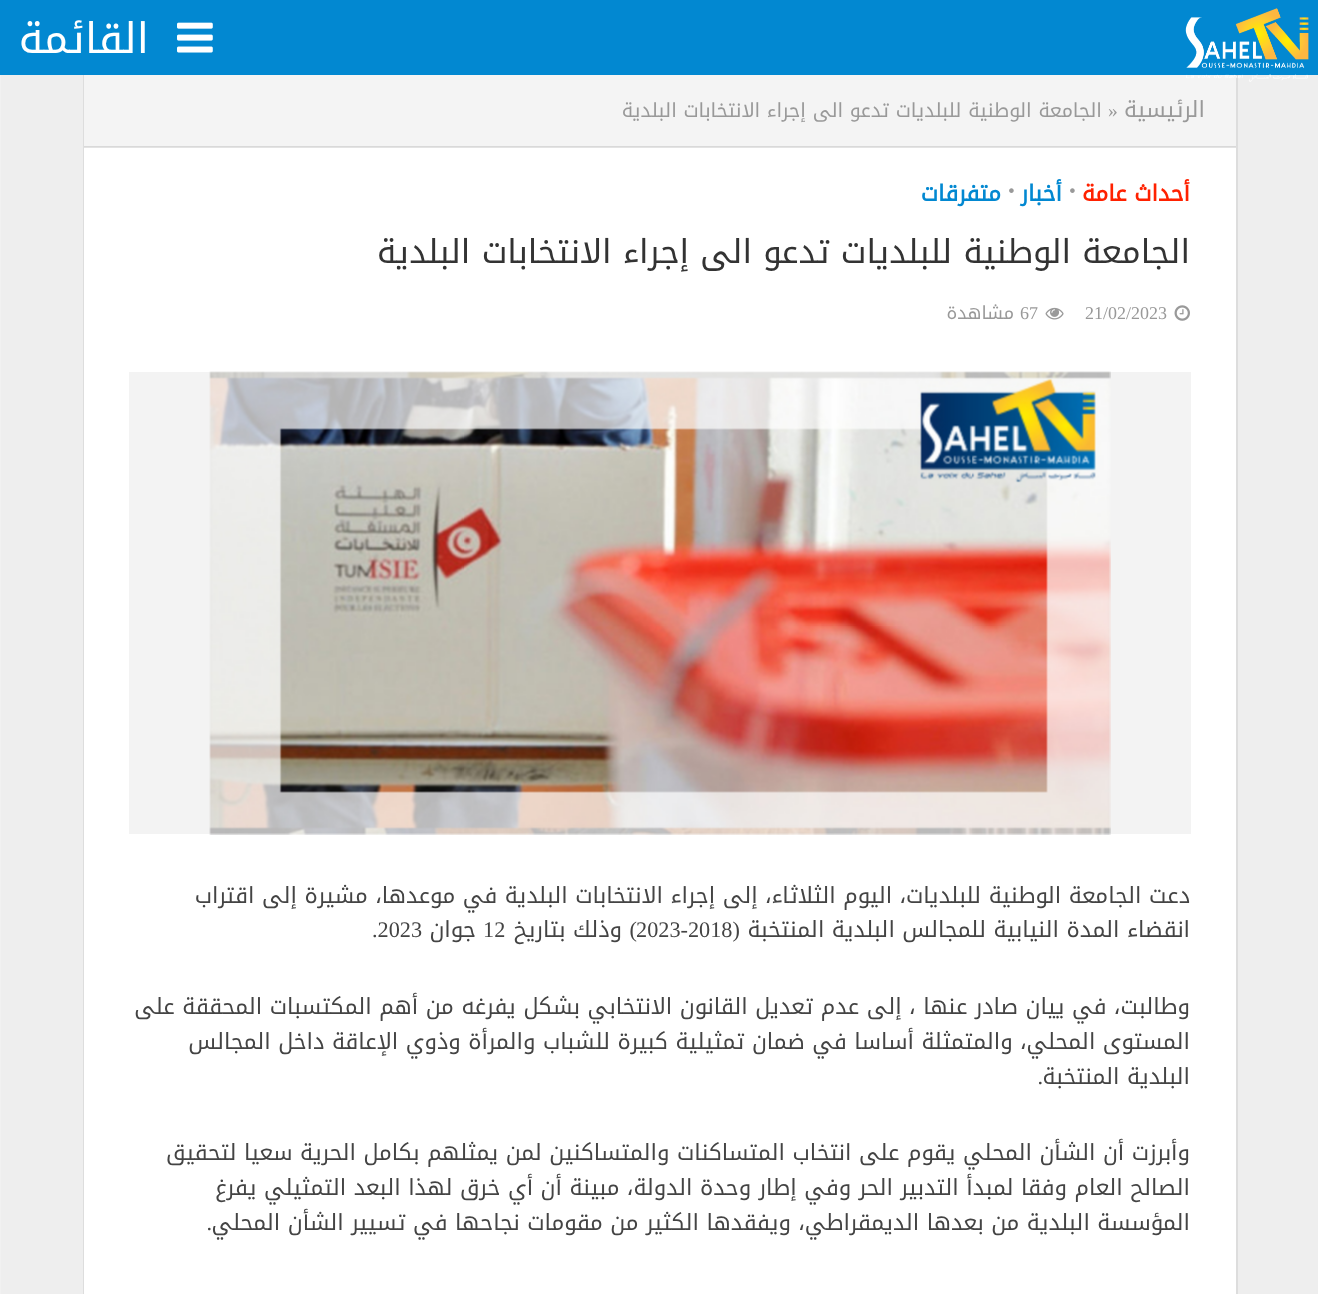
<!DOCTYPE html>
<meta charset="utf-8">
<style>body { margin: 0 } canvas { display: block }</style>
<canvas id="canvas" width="1318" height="1294"></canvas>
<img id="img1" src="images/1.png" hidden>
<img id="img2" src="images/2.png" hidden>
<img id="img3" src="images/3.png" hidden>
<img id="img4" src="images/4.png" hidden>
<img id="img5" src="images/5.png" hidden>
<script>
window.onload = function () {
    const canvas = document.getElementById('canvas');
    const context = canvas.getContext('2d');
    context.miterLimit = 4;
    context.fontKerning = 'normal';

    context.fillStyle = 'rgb(238, 238, 238)';
    context.fillRect(0, 0, 1318, 1294);
    context.strokeStyle = 'rgb(221, 221, 221)';
    context.lineWidth = 2;
    context.strokeRect(84, 75, 1153, 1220);
    context.fillStyle = 'rgb(2, 136, 209)';
    context.fillRect(0, 0, 1318, 75);
    context.fillStyle = 'rgb(244, 244, 244)';
    context.fillRect(84, 75, 1152, 72);
    context.drawImage(document.getElementById('img1'), 1185, 8, 124, 74);
    context.drawImage(document.getElementById('img2'), 177, 22, 36, 31);
    context.fillStyle = 'rgb(255, 255, 255)';
    context.fillRect(84, 147, 1152, 1147);
    context.fillStyle = 'rgba(68, 68, 68, 0.15)';
    context.fillRect(84, 146, 1152, 2);
    context.drawImage(document.getElementById('img3'), 1174, 305, 16, 16);
    context.drawImage(document.getElementById('img4'), 1045, 307, 19, 13);
    context.fillStyle = 'rgb(243, 243, 243)';
    context.fillRect(129, 372, 1062, 462);
    context.drawImage(document.getElementById('img5'), 209, 371, 902, 464);
    context.fillStyle = 'rgb(241, 241, 241)';
    context.fillRect(0, 75, 1, 1219);
    context.direction = 'rtl';
    context.font = '42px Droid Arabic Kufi';
    context.fillStyle = 'rgb(255, 255, 255)';
    context.fillText('القائمة', 149, 53);
    context.font = '22.25px Droid Arabic Kufi';
    context.fillStyle = 'rgb(153, 153, 153)';
    context.fillText('الرئيسية', 1205, 117);
    context.direction = 'ltr';
    context.font = '19.5px Liberation Serif';
    context.fillText('»', 1108, 117);
    context.direction = 'rtl';
    context.font = '19.5px Droid Arabic Kufi';
    context.fillText('الجامعة الوطنية للبلديات تدعو الى إجراء الانتخابات البلدية', 1102, 117);
    context.font = 'bold 22.25px Droid Arabic Kufi';
    context.fillStyle = 'rgb(255, 33, 0)';
    context.fillText('أحداث عامة', 1190, 201);
    context.direction = 'ltr';
    context.font = '19.5px Liberation Serif';
    context.fillStyle = 'rgb(153, 153, 153)';
    context.fillText('•', 1069, 197);
    context.direction = 'rtl';
    context.font = 'bold 22.25px Droid Arabic Kufi';
    context.fillStyle = 'rgb(2, 136, 209)';
    context.fillText('أخبار', 1062, 201);
    context.direction = 'ltr';
    context.font = '19.5px Liberation Serif';
    context.fillStyle = 'rgb(153, 153, 153)';
    context.fillText('•', 1008, 197);
    context.direction = 'rtl';
    context.font = 'bold 22.25px Droid Arabic Kufi';
    context.fillStyle = 'rgb(2, 136, 209)';
    context.fillText('متفرقات', 1001, 201);
    context.font = '33px Droid Arabic Kufi';
    context.fillStyle = 'rgb(51, 51, 51)';
    context.fillText('الجامعة الوطنية للبلديات تدعو الى إجراء الانتخابات البلدية', 1190, 263);
    context.direction = 'ltr';
    context.font = '18px Liberation Serif';
    context.fillStyle = 'rgb(153, 153, 153)';
    context.fillText('21/02/2023', 1085, 319);
    context.fillText('67', 1020, 319);
    context.direction = 'rtl';
    context.font = '18px Droid Arabic Kufi';
    context.fillText('مشاهدة', 1014, 319);
    context.font = '22.25px Droid Arabic Kufi';
    context.fillStyle = 'rgb(68, 68, 68)';
    context.fillText('دعت الجامعة الوطنية للبلديات، اليوم الثلاثاء، إلى إجراء الانتخابات البلدية في موعدها، مشيرة إلى اقتراب', 1190, 903);
    context.fillText('انقضاء المدة النيابية للمجالس البلدية المنتخبة', 1190, 937);
    context.font = '22.25px Liberation Serif';
    context.fillText('(', 740, 937);
    context.direction = 'ltr';
    context.fillText('2023-2018', 636, 937);
    context.direction = 'rtl';
    context.fillText(')', 637, 937);
    context.font = '22.25px Droid Arabic Kufi';
    context.fillText('وذلك بتاريخ', 622, 937);
    context.direction = 'ltr';
    context.font = '22.25px Liberation Serif';
    context.fillText('12', 483, 937);
    context.direction = 'rtl';
    context.font = '22.25px Droid Arabic Kufi';
    context.fillText('جوان', 476, 937);
    context.direction = 'ltr';
    context.font = '22.25px Liberation Serif';
    context.fillText('.2023', 372, 937);
    context.direction = 'rtl';
    context.font = '22.25px Droid Arabic Kufi';
    context.fillText('وطالبت، في ييان صادر عنها ، إلى عدم تعديل القانون الانتخابي بشكل يفرغه من أهم المكتسبات المحققة على', 1190, 1014);
    context.fillText('المستوى المحلي، والمتمثلة أساسا في ضمان تمثيلية كبيرة للشباب والمرأة وذوي الإعاقة داخل المجالس', 1190, 1049);
    context.fillText('البلدية المنتخبة', 1190, 1084);
    context.font = '22.25px Liberation Serif';
    context.fillText('.', 1043, 1084);
    context.font = '22.25px Droid Arabic Kufi';
    context.fillText('وأبرزت أن الشأن المحلي يقوم على انتخاب المتساكنات والمتساكنين لمن يمثلهم بكامل الحرية سعيا لتحقيق', 1190, 1160);
    context.fillText('الصالح العام وفقا لمبدأ التدبير الحر وفي إطار وحدة الدولة، مبينة أن أي خرق لهذا البعد التمثيلي يفرغ', 1190, 1195);
    context.fillText('المؤسسة البلدية من بعدها الديمقراطي، ويفقدها الكثير من مقومات نجاحها في تسيير الشأن المحلي', 1190, 1230);
    context.font = '22.25px Liberation Serif';
    context.fillText('.', 212, 1230);
};
</script>
